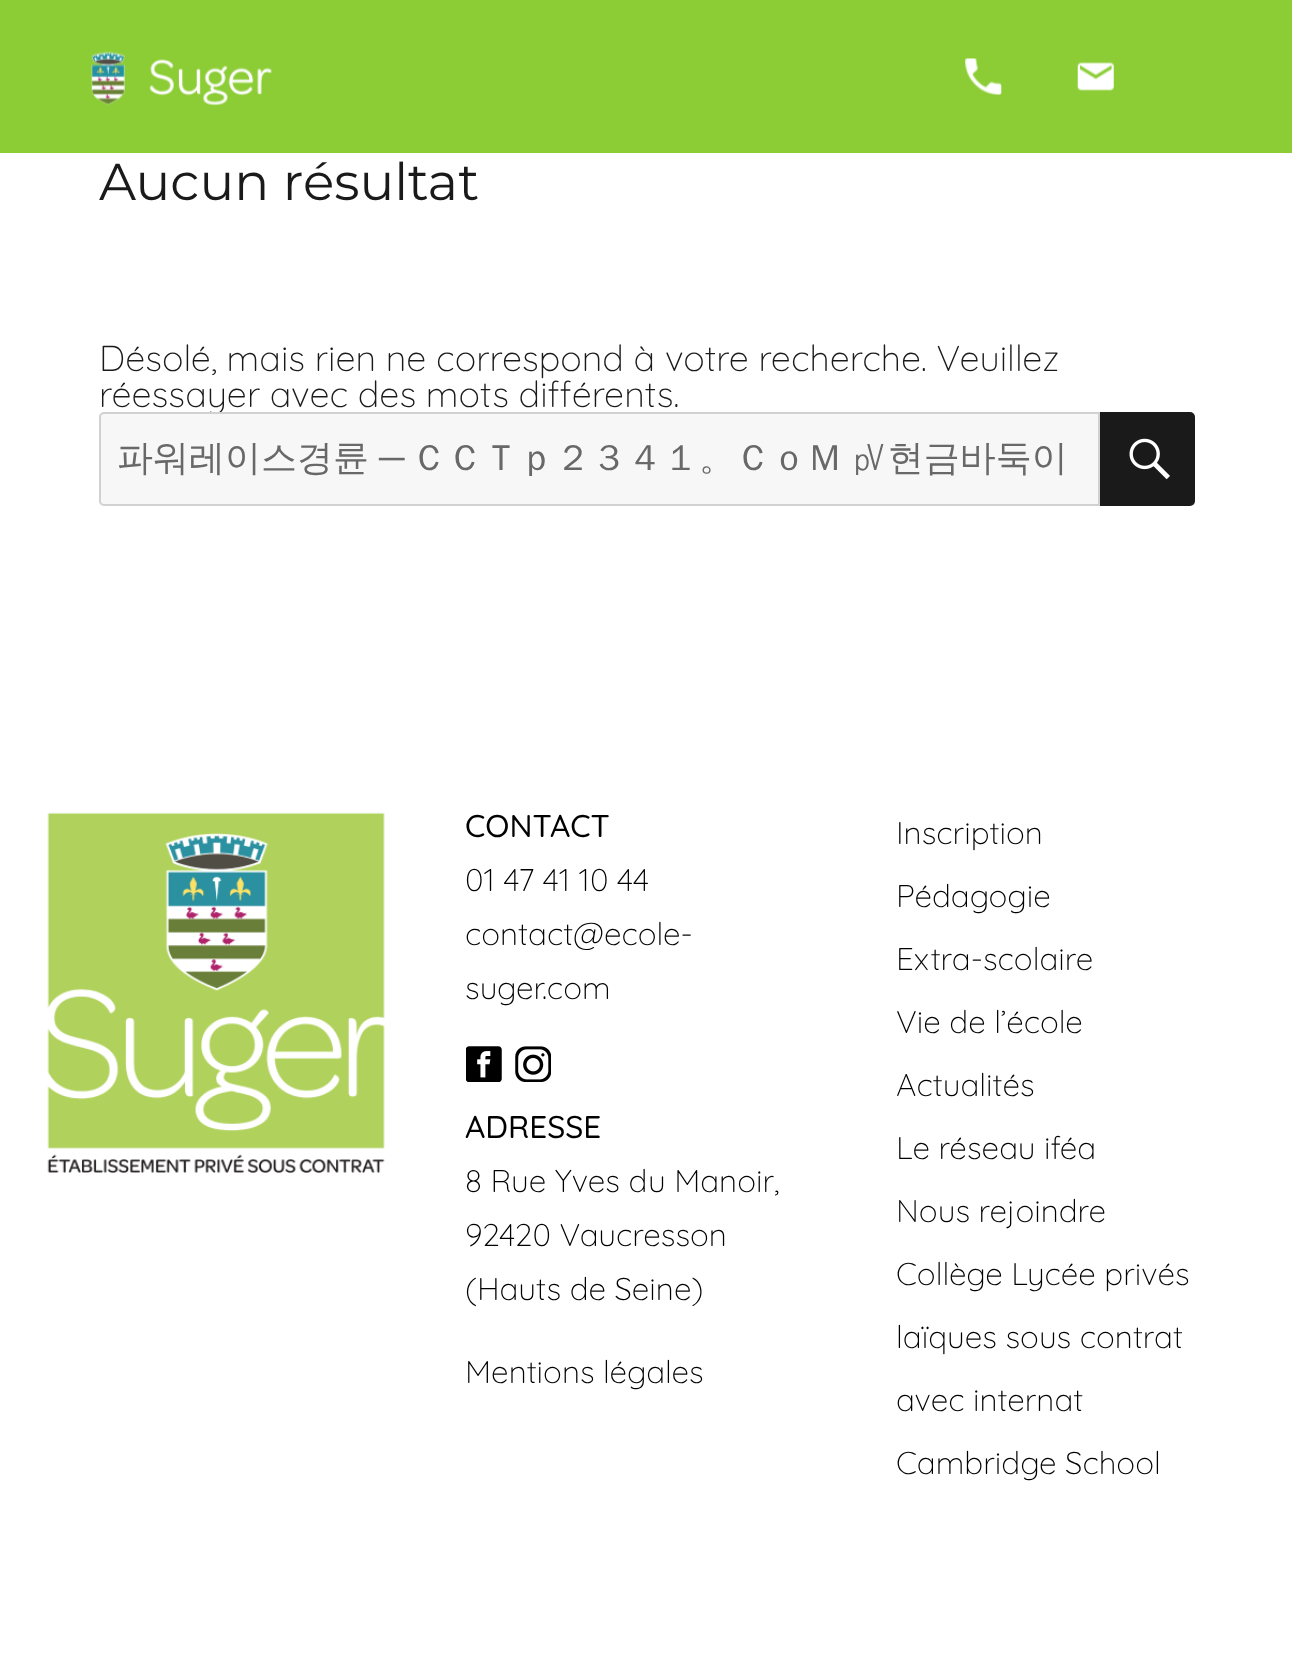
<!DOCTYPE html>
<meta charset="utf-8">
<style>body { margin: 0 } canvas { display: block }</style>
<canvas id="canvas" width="1292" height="1666"></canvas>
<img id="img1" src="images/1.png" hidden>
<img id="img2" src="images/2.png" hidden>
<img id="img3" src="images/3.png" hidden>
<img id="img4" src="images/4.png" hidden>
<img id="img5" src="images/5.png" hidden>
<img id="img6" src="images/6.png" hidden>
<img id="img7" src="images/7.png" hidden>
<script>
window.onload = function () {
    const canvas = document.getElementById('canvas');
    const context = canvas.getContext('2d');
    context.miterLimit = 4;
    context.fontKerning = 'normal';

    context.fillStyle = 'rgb(255, 255, 255)';
    context.fillRect(0, 0, 1292, 1666);
    context.fillStyle = 'rgb(140, 205, 54)';
    context.fillRect(0, 0, 1292, 153);
    context.drawImage(document.getElementById('img1'), 91, 51, 181, 55);
    context.drawImage(document.getElementById('img2'), 965, 58, 37, 37);
    context.drawImage(document.getElementById('img3'), 1077, 62, 37, 29);
    context.fillStyle = 'rgb(26, 26, 26)';
    context.beginPath();
    context.roundRect(1100, 412, 95, 94, [0, 5, 5, 0]);
    context.fill();
    context.drawImage(document.getElementById('img4'), 1129, 438, 41, 42);
    context.drawImage(document.getElementById('img5'), 47, 812, 338, 361);
    context.drawImage(document.getElementById('img6'), 466, 1046, 36, 36);
    context.drawImage(document.getElementById('img7'), 515, 1046, 36, 36);
    context.font = '51.75px Montserrat';
    context.fillText('Aucun résultat', 99, 200);
    context.font = '300 36px Quicksand';
    context.fillText('Désolé, mais rien ne correspond à votre recherche. Veuillez', 99, 371);
    context.fillText('réessayer avec des mots différents.', 99, 407);
    context.fillStyle = 'rgb(247, 247, 247)';
    context.beginPath();
    context.roundRect(100, 413, 999, 92, [4, 0, 0, 4]);
    context.fill();
    context.strokeStyle = 'rgb(209, 209, 209)';
    context.lineWidth = 2;
    context.stroke();
    context.font = '500 36px WenQuanYi Zen Hei';
    context.fillStyle = 'rgb(104, 104, 104)';
    context.fillText('파워레이스경륜', 117, 470);
    context.font = '36px Liberation Serif';
    context.fillText('─', 379, 470);
    context.wordSpacing = '-2px';
    context.font = '500 36px WenQuanYi Zen Hei';
    context.fillText('ＣＣＴｐ２３４１。ＣｏＭ ㎴현금바둑이', 411, 470);
    context.wordSpacing = '0px';
    context.font = '300 31.5px "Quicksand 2"';
    context.fillStyle = 'rgb(0, 0, 0)';
    context.fillText('CONTACT', 465, 837);
    context.font = '300 31.5px Quicksand';
    context.fillText('01 47 41 10 44', 465, 891);
    context.fillText('contact@ecole-', 465, 945);
    context.fillText('suger.com', 465, 999);
    context.font = '300 31.5px "Quicksand 2"';
    context.fillText('ADRESSE', 465, 1138);
    context.font = '300 31.5px Quicksand';
    context.fillText('8 Rue Yves du Manoir,', 465, 1192);
    context.fillText('92420 Vaucresson', 465, 1246);
    context.fillText('(Hauts de Seine)', 465, 1300);
    context.fillText('Mentions légales', 465, 1383);
    context.fillText('Inscription', 896, 844);
    context.fillText('Pédagogie', 896, 907);
    context.fillText('Extra-scolaire', 896, 970);
    context.fillText('Vie de l’école', 896, 1033);
    context.fillText('Actualités', 896, 1096);
    context.fillText('Le réseau iféa', 896, 1159);
    context.fillText('Nous rejoindre', 896, 1222);
    context.fillText('Collège Lycée privés', 896, 1285);
    context.fillText('laïques sous contrat', 896, 1348);
    context.fillText('avec internat', 896, 1411);
    context.fillText('Cambridge School', 896, 1474);
};
</script>
